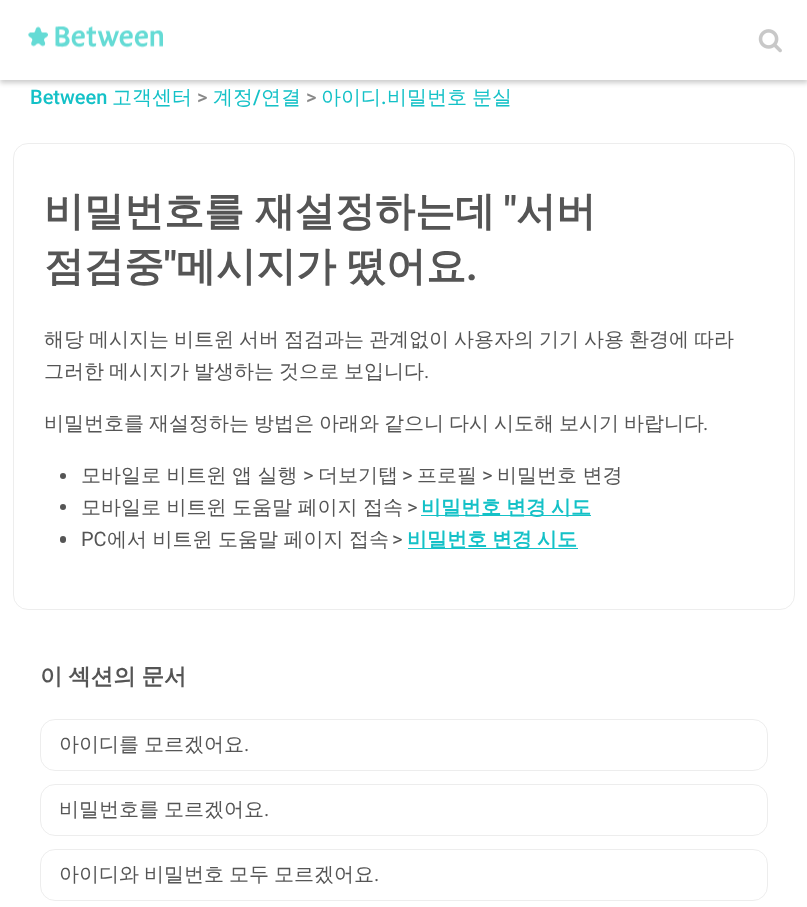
<!DOCTYPE html>
<meta charset="utf-8">
<style>body { margin: 0 } canvas { display: block }</style>
<canvas id="canvas" width="807" height="907"></canvas>
<img id="img1" src="images/1.png" hidden>
<img id="img2" src="images/2.png" hidden>
<script>
window.onload = function () {
    const canvas = document.getElementById('canvas');
    const context = canvas.getContext('2d');
    context.miterLimit = 4;
    context.fontKerning = 'normal';

    context.fillStyle = 'rgb(255, 255, 255)';
    context.fillRect(0, 0, 807, 907);
    context.fillStyle = 'rgba(0, 0, 0, 0.2)';
    context.filter = 'blur(2.5px)';
    context.beginPath();
    context.rect(0, 3, 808, 80);
    context.fill();
    context.filter = 'none';
    context.fillStyle = 'rgb(255, 255, 255)';
    context.fillRect(0, 0, 807, 80);
    context.drawImage(document.getElementById('img1'), 28, 26, 135, 22);
    context.drawImage(document.getElementById('img2'), 758, 29, 24, 24);
    context.beginPath();
    context.roundRect(13.5, 143.5, 781, 466, 14.5);
    context.strokeStyle = 'rgba(220, 220, 220, 0.5)';
    context.stroke();
    context.fillStyle = 'rgb(85, 85, 85)';
    context.beginPath();
    context.arc(63, 476, 3, 0, 2 * Math.PI);
    context.fill();
    context.beginPath();
    context.arc(63, 507, 3, 0, 2 * Math.PI);
    context.fill();
    context.fillStyle = 'rgb(20, 193, 199)';
    context.fillRect(421, 515, 170, 1);
    context.fillStyle = 'rgb(85, 85, 85)';
    context.beginPath();
    context.roundRect(60, 536, 6, 7, 3);
    context.fill();
    context.fillStyle = 'rgb(20, 193, 199)';
    context.fillRect(408, 548, 170, 1);
    context.beginPath();
    context.roundRect(40.5, 719.5, 727, 51, 14.5);
    context.stroke();
    context.beginPath();
    context.roundRect(40.5, 784.5, 727, 51, 14.5);
    context.stroke();
    context.beginPath();
    context.roundRect(40.5, 849.5, 727, 51, 14.5);
    context.stroke();
    context.font = '500 20px Roboto';
    context.fillText('Between', 30, 104);
    context.font = '500 20px WenQuanYi Zen Hei';
    context.fillText('고객센터', 112, 104);
    context.font = '500 20px Roboto';
    context.fillStyle = 'rgb(136, 136, 136)';
    context.fillText('>', 197, 104);
    context.font = '500 20px WenQuanYi Zen Hei';
    context.fillStyle = 'rgb(20, 193, 199)';
    context.fillText('계정', 213, 104);
    context.font = '500 20px Roboto';
    context.fillText('/', 253, 104);
    context.font = '500 20px WenQuanYi Zen Hei';
    context.fillText('연결', 261, 104);
    context.font = '500 20px Roboto';
    context.fillStyle = 'rgb(136, 136, 136)';
    context.fillText('>', 306, 104);
    context.font = '500 20px WenQuanYi Zen Hei';
    context.fillStyle = 'rgb(20, 193, 199)';
    context.fillText('아이디', 321, 104);
    context.font = '500 20px Roboto';
    context.fillText('.', 381, 104);
    context.wordSpacing = '-1px';
    context.font = '500 20px WenQuanYi Zen Hei';
    context.fillText('비밀번호 분실', 387, 104);
    context.font = 'bold 40px WenQuanYi Zen Hei';
    context.fillStyle = 'rgb(85, 85, 85)';
    context.fillText('비밀번호를 재설정하는데', 44, 225);
    context.wordSpacing = '0px';
    context.font = 'bold 40px Roboto';
    context.fillText('"', 504, 225);
    context.font = 'bold 40px WenQuanYi Zen Hei';
    context.fillText('서버', 516, 225);
    context.fillText('점검중', 44, 280);
    context.font = 'bold 40px Roboto';
    context.fillText('"', 164, 280);
    context.wordSpacing = '-2px';
    context.font = 'bold 40px WenQuanYi Zen Hei';
    context.fillText('메시지가 떴어요', 176, 280);
    context.wordSpacing = '0px';
    context.font = 'bold 40px Roboto';
    context.fillText('.', 466, 280);
    context.wordSpacing = '-1px';
    context.font = '500 20px WenQuanYi Zen Hei';
    context.fillText('해당 메시지는 비트윈 서버 점검과는 관계없이 사용자의 기기 사용 환경에 따라', 44, 346);
    context.fillText('그러한 메시지가 발생하는 것으로 보입니다', 44, 378);
    context.wordSpacing = '0px';
    context.font = '20px Roboto';
    context.fillText('.', 424, 378);
    context.wordSpacing = '-1px';
    context.font = '500 20px WenQuanYi Zen Hei';
    context.fillText('비밀번호를 재설정하는 방법은 아래와 같으니 다시 시도해 보시기 바랍니다', 44, 430);
    context.wordSpacing = '0px';
    context.font = '20px Roboto';
    context.fillText('.', 703, 430);
    context.wordSpacing = '-0.5px';
    context.font = '500 20px WenQuanYi Zen Hei';
    context.fillText('모바일로 비트윈 앱 실행', 81, 482);
    context.wordSpacing = '0px';
    context.font = '20px Roboto';
    context.fillText('>', 303, 482);
    context.font = '500 20px WenQuanYi Zen Hei';
    context.fillText('더보기탭', 318, 482);
    context.font = '20px Roboto';
    context.fillText('>', 402, 482);
    context.font = '500 20px WenQuanYi Zen Hei';
    context.fillText('프로필', 417, 482);
    context.font = '20px Roboto';
    context.fillText('>', 482, 482);
    context.wordSpacing = '-0.5px';
    context.font = '500 20px WenQuanYi Zen Hei';
    context.fillText('비밀번호 변경', 497, 482);
    context.fillText('모바일로 비트윈 도움말 페이지 접속', 81, 514);
    context.wordSpacing = '0px';
    context.font = '20px Roboto';
    context.fillText('>', 407, 514);
    context.wordSpacing = '-1px';
    context.font = 'bold 20px WenQuanYi Zen Hei';
    context.fillStyle = 'rgb(20, 193, 199)';
    context.fillText('비밀번호 변경 시도', 421, 514);
    context.wordSpacing = '0px';
    context.font = '20px Roboto';
    context.fillStyle = 'rgb(85, 85, 85)';
    context.fillText('PC', 81, 546);
    context.wordSpacing = '-0.5px';
    context.font = '500 20px WenQuanYi Zen Hei';
    context.fillText('에서 비트윈 도움말 페이지 접속', 107, 546);
    context.wordSpacing = '0px';
    context.font = '20px Roboto';
    context.fillText('>', 392, 546);
    context.wordSpacing = '-1px';
    context.font = 'bold 20px WenQuanYi Zen Hei';
    context.fillStyle = 'rgb(20, 193, 199)';
    context.fillText('비밀번호 변경 시도', 407, 546);
    context.font = 'bold 22.5px WenQuanYi Zen Hei';
    context.fillStyle = 'rgb(85, 85, 85)';
    context.fillText('이 섹션의 문서', 40, 684);
    context.font = '500 20px WenQuanYi Zen Hei';
    context.fillText('아이디를 모르겠어요', 59, 751);
    context.wordSpacing = '0px';
    context.font = '20px Roboto';
    context.fillText('.', 244, 751);
    context.wordSpacing = '-1px';
    context.font = '500 20px WenQuanYi Zen Hei';
    context.fillText('비밀번호를 모르겠어요', 59, 816);
    context.wordSpacing = '0px';
    context.font = '20px Roboto';
    context.fillText('.', 264, 816);
    context.wordSpacing = '-1px';
    context.font = '500 20px WenQuanYi Zen Hei';
    context.fillText('아이디와 비밀번호 모두 모르겠어요', 59, 881);
    context.wordSpacing = '0px';
    context.font = '20px Roboto';
    context.fillText('.', 374, 881);
};
</script>
